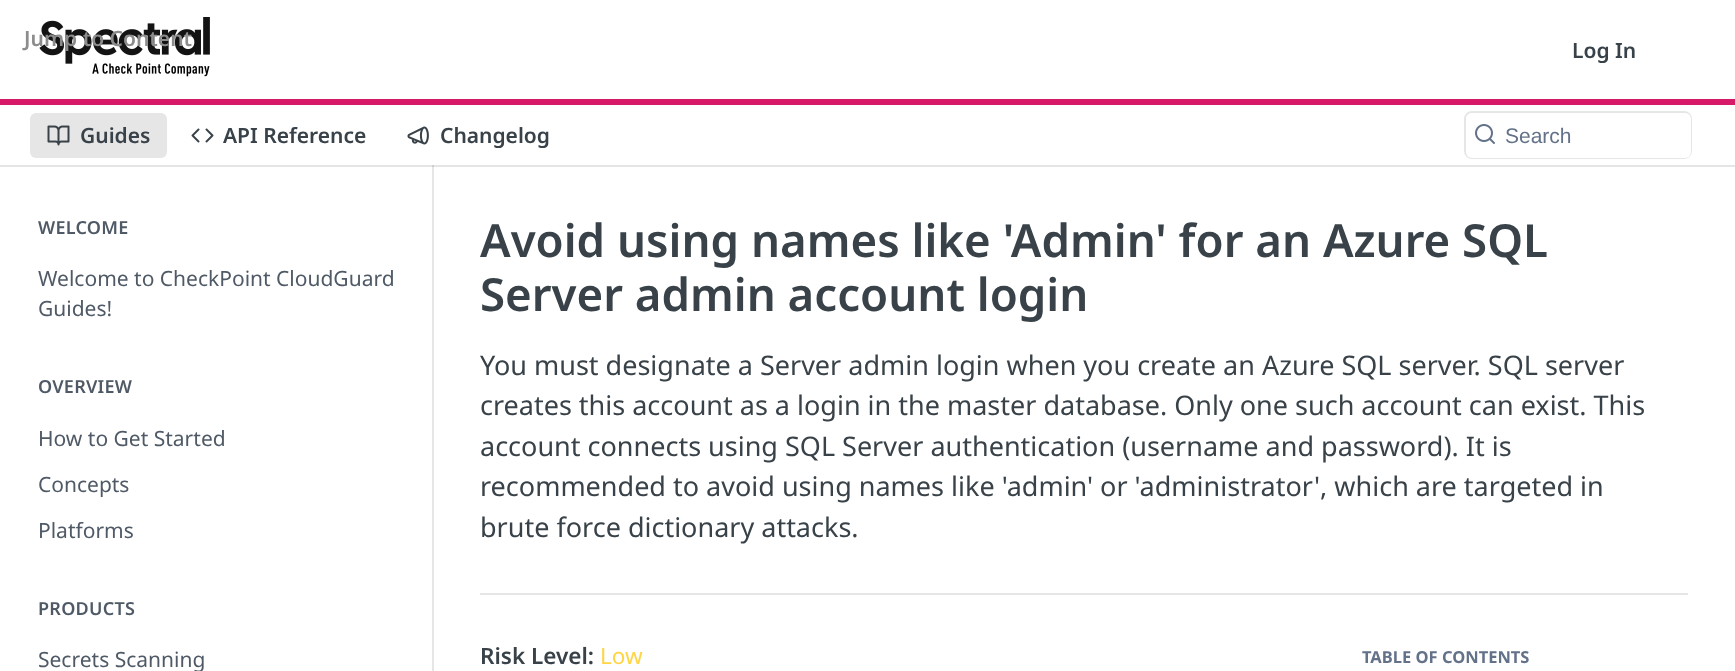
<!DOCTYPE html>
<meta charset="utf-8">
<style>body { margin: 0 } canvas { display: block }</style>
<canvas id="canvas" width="1735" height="671"></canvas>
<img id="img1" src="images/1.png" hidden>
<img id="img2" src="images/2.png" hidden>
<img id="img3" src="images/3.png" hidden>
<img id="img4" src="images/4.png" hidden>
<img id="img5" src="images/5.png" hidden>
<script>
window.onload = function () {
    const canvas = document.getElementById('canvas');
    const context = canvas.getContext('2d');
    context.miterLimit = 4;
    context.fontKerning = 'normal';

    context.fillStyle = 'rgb(255, 255, 255)';
    context.fillRect(0, 0, 1735, 671);
    context.fillStyle = 'rgb(230, 230, 230)';
    context.fillRect(432, 165, 2, 506);
    context.fillStyle = 'rgba(0, 0, 0, 0.1)';
    context.beginPath();
    context.moveTo(0, 165);
    context.lineTo(0, 167);
    context.lineTo(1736, 167);
    context.lineTo(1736, 2);
    context.lineTo(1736, 165);
    context.closePath();
    context.fill();
    context.fillStyle = 'rgb(214, 26, 105)';
    context.fillRect(0, 99, 1735, 6);
    context.drawImage(document.getElementById('img1'), 39, 17, 171, 60);
    context.fillStyle = 'rgb(230, 230, 230)';
    context.beginPath();
    context.roundRect(30, 113, 137, 45, 6);
    context.fill();
    context.drawImage(document.getElementById('img2'), 47, 125, 23, 21);
    context.drawImage(document.getElementById('img3'), 191, 128, 23, 15);
    context.drawImage(document.getElementById('img4'), 407, 126, 22, 19);
    context.beginPath();
    context.roundRect(1465, 112, 226, 46, 7);
    context.strokeStyle = 'rgb(230, 230, 230)';
    context.lineWidth = 2;
    context.stroke();
    context.fillStyle = 'rgb(255, 255, 255)';
    context.beginPath();
    context.roundRect(1466, 113, 225, 45, 6);
    context.fill();
    context.drawImage(document.getElementById('img5'), 1475, 124, 20, 20);
    context.fillStyle = 'rgb(230, 230, 230)';
    context.fillRect(480, 593, 1208, 2);
    context.font = '600 21px Noto Sans';
    context.fillStyle = 'rgb(140, 140, 140)';
    context.fillText('Jump to Content', 24, 46);
    context.fillStyle = 'rgb(56, 66, 72)';
    context.fillText('Log In', 1572, 58);
    context.fillText('Guides', 80, 143);
    context.fillText('API Reference', 223, 143);
    context.fillText('Changelog', 440, 143);
    context.font = '21px Liberation Sans';
    context.fillStyle = 'rgb(99, 114, 136)';
    context.fillText('Search', 1505, 143);
    context.letterSpacing = '0.25px';
    context.font = '600 18px Noto Sans';
    context.fillStyle = 'rgb(79, 90, 102)';
    context.fillText('WELCOME', 38, 234);
    context.letterSpacing = '0px';
    context.font = '21px Noto Sans';
    context.fillText('Welcome to CheckPoint CloudGuard', 38, 286);
    context.fillText('Guides!', 38, 316);
    context.letterSpacing = '0.25px';
    context.font = '600 18px Noto Sans';
    context.fillText('OVERVIEW', 38, 393);
    context.letterSpacing = '0px';
    context.font = '21px Noto Sans';
    context.fillText('How to Get Started', 38, 446);
    context.fillText('Concepts', 38, 492);
    context.fillText('Platforms', 38, 538);
    context.letterSpacing = '0.25px';
    context.font = '600 18px Noto Sans';
    context.fillText('PRODUCTS', 38, 615);
    context.letterSpacing = '0px';
    context.font = '21px Noto Sans';
    context.fillText('Secrets Scanning', 38, 667);
    context.font = '600 45.6px Noto Sans';
    context.fillStyle = 'rgb(56, 66, 72)';
    context.fillText('Avoid using names like \'Admin\' for an Azure SQL', 480, 257);
    context.fillText('Server admin account login', 480, 311);
    context.font = '27px Noto Sans';
    context.fillText('You must designate a Server admin login when you create an Azure SQL server. SQL server', 480, 375);
    context.fillText('creates this account as a login in the master database. Only one such account can exist. This', 480, 415);
    context.fillText('account connects using SQL Server authentication (username and password). It is', 480, 456);
    context.fillText('recommended to avoid using names like \'admin\' or \'administrator\', which are targeted in', 480, 496);
    context.fillText('brute force dictionary attacks.', 480, 537);
    context.font = '600 22.5px Noto Sans';
    context.fillText('Risk Level:', 480, 664);
    context.font = '22.5px Noto Sans';
    context.fillStyle = 'rgb(255, 213, 70)';
    context.fillText('Low', 600, 664);
    context.font = 'bold 16.5px Noto Sans';
    context.fillStyle = 'rgb(99, 114, 136)';
    context.fillText('TABLE OF CONTENTS', 1362, 663);
};
</script>
